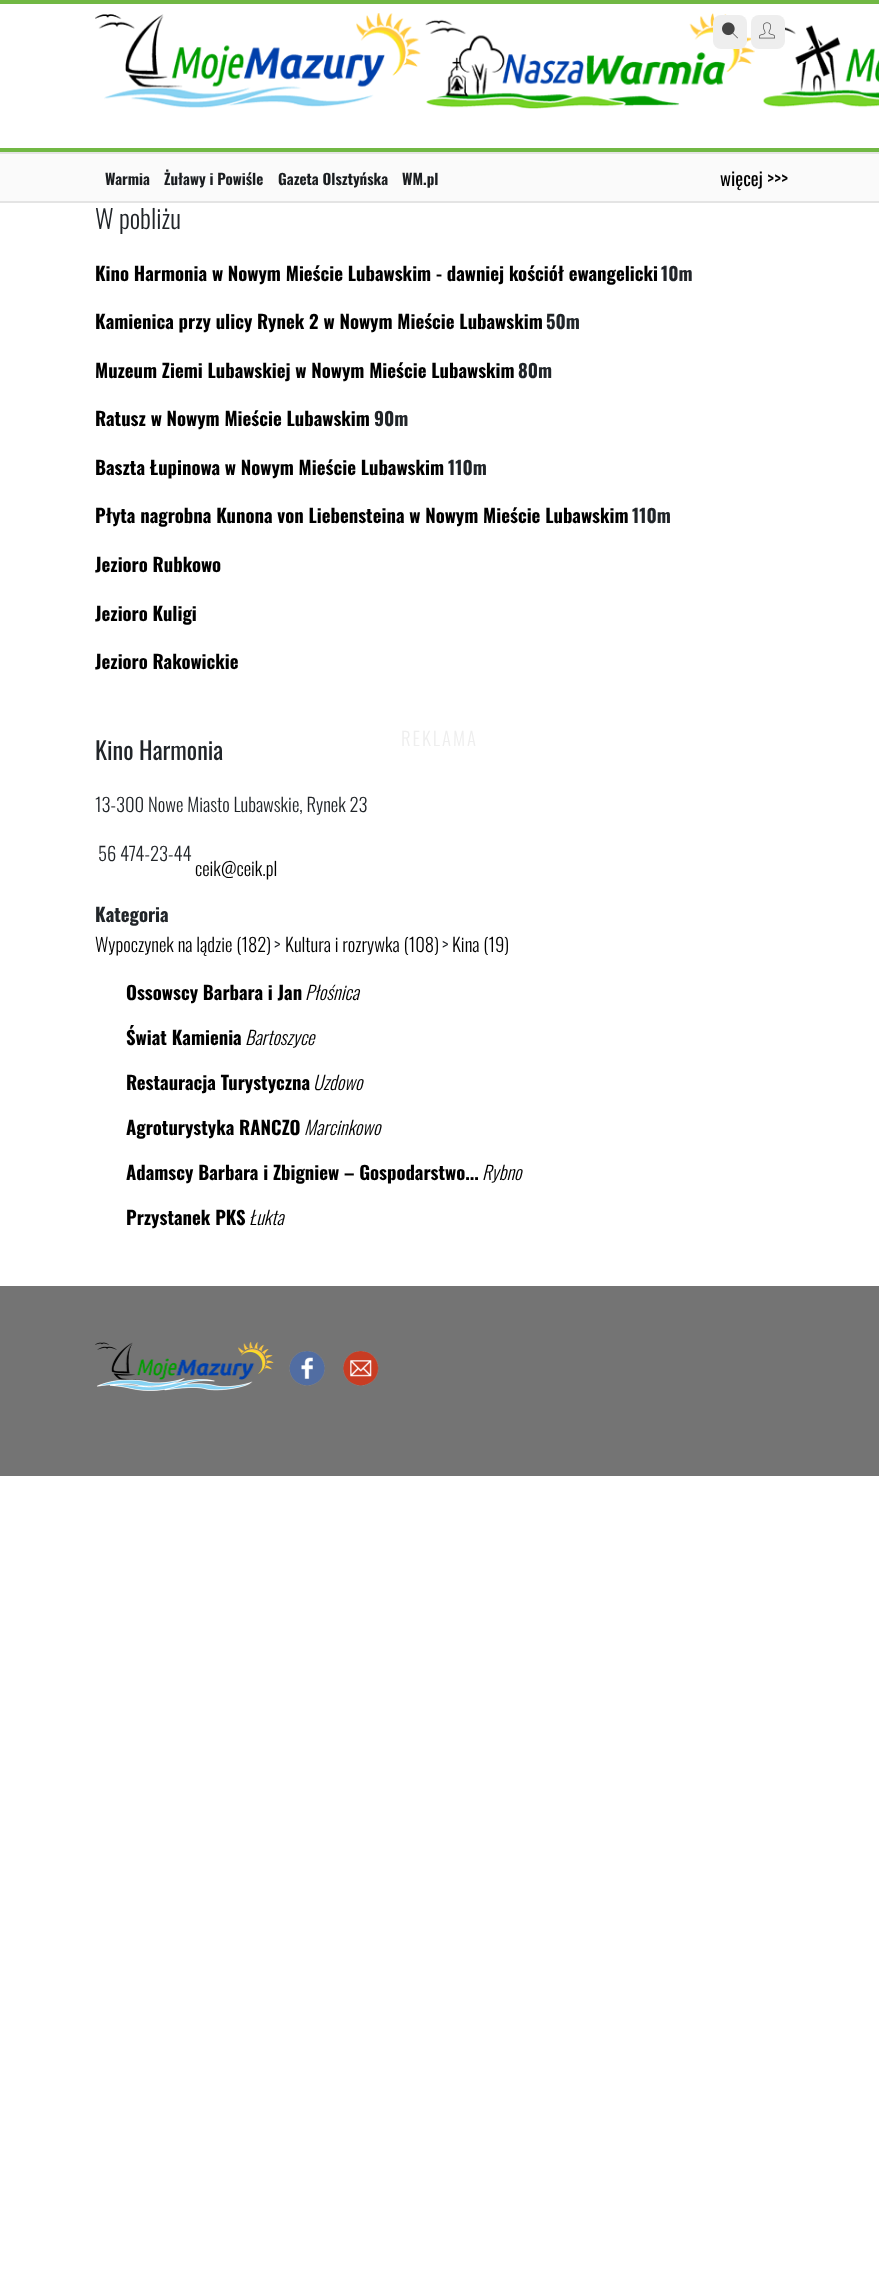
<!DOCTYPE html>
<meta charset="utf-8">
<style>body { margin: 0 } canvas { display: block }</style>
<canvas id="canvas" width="879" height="2273"></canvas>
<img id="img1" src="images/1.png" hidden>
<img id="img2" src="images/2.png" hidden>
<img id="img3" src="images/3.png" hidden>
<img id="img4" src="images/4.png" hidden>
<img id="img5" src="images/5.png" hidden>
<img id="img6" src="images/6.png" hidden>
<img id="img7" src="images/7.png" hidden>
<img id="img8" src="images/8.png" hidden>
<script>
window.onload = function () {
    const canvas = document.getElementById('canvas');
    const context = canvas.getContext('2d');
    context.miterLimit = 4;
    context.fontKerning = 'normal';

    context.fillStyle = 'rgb(255, 255, 255)';
    context.fillRect(0, 0, 879, 2273);
    context.fillStyle = 'rgb(113, 184, 68)';
    context.fillRect(0, 0, 879, 4);
    context.drawImage(document.getElementById('img1'), 95, 13, 326, 95);
    context.drawImage(document.getElementById('img2'), 425, 13, 330, 96);
    context.drawImage(document.getElementById('img3'), 762, 23, 117, 85);
    context.fillStyle = 'rgb(238, 238, 238)';
    context.beginPath();
    context.roundRect(713, 15, 34, 34, 8);
    context.fill();
    context.drawImage(document.getElementById('img4'), 722, 22, 16, 17);
    context.beginPath();
    context.roundRect(751, 15, 34, 34, 8);
    context.fill();
    context.drawImage(document.getElementById('img5'), 759, 22, 16, 17);
    context.fillStyle = 'rgb(113, 184, 68)';
    context.fillRect(0, 148, 879, 4);
    context.fillStyle = 'rgb(250, 250, 250)';
    context.fillRect(0, 154, 879, 47);
    context.fillStyle = 'rgb(228, 228, 228)';
    context.fillRect(0, 152, 879, 2);
    context.fillRect(0, 201, 879, 2);
    context.fillStyle = 'rgb(116, 116, 116)';
    context.fillRect(0, 1286, 879, 190);
    context.drawImage(document.getElementById('img6'), 95, 1342, 179, 49);
    context.drawImage(document.getElementById('img7'), 289, 1351, 36, 35);
    context.drawImage(document.getElementById('img8'), 343, 1351, 36, 35);
    context.font = 'bold 15px Oswald';
    context.fillStyle = 'rgb(27, 30, 33)';
    context.fillText('Warmia', 105, 185);
    context.fillText('Żuławy i Powiśle', 164, 185);
    context.fillText('Gazeta Olsztyńska', 278, 185);
    context.fillText('WM.pl', 402, 185);
    context.font = '18.7px Oswald';
    context.fillStyle = 'rgb(0, 0, 0)';
    context.fillText('więcej >>>', 720, 186);
    context.font = '300 26px Oswald';
    context.fillStyle = 'rgb(33, 37, 41)';
    context.fillText('W pobliżu', 95, 229);
    context.font = 'bold 18.7px Oswald';
    context.fillStyle = 'rgb(0, 0, 0)';
    context.fillText('Kino Harmonia w Nowym Mieście Lubawskim - dawniej kościół ewangelicki', 95, 281);
    context.fillStyle = 'rgb(33, 37, 41)';
    context.fillText('10m', 661, 281);
    context.fillStyle = 'rgb(0, 0, 0)';
    context.fillText('Kamienica przy ulicy Rynek 2 w Nowym Mieście Lubawskim', 95, 329);
    context.fillStyle = 'rgb(33, 37, 41)';
    context.fillText('50m', 546, 329);
    context.fillStyle = 'rgb(0, 0, 0)';
    context.fillText('Muzeum Ziemi Lubawskiej w Nowym Mieście Lubawskim', 95, 378);
    context.fillStyle = 'rgb(33, 37, 41)';
    context.fillText('80m', 518, 378);
    context.fillStyle = 'rgb(0, 0, 0)';
    context.fillText('Ratusz w Nowym Mieście Lubawskim', 95, 426);
    context.fillStyle = 'rgb(33, 37, 41)';
    context.fillText('90m', 374, 426);
    context.fillStyle = 'rgb(0, 0, 0)';
    context.fillText('Baszta Łupinowa w Nowym Mieście Lubawskim', 95, 475);
    context.fillStyle = 'rgb(33, 37, 41)';
    context.fillText('110m', 448, 475);
    context.fillStyle = 'rgb(0, 0, 0)';
    context.fillText('Płyta nagrobna Kunona von Liebensteina w Nowym Mieście Lubawskim', 95, 523);
    context.fillStyle = 'rgb(33, 37, 41)';
    context.fillText('110m', 632, 523);
    context.save();
    context.beginPath();
    context.rect(95, 549, 690, 49);
    context.clip();
    context.fillStyle = 'rgb(0, 0, 0)';
    context.fillText('Jezioro Rubkowo', 95, 572);
    context.restore();
    context.save();
    context.beginPath();
    context.rect(95, 598, 690, 48);
    context.clip();
    context.fillStyle = 'rgb(0, 0, 0)';
    context.fillText('Jezioro Kuligi', 95, 621);
    context.restore();
    context.save();
    context.beginPath();
    context.rect(95, 646, 690, 49);
    context.clip();
    context.fillStyle = 'rgb(0, 0, 0)';
    context.fillText('Jezioro Rakowickie', 95, 669);
    context.restore();
    context.font = '24.25px Oswald';
    context.fillText('Kino Harmonia', 95, 760);
    context.font = '300 18.7px Oswald';
    context.fillText('13-300 Nowe Miasto Lubawskie, Rynek 23', 95, 812);
    context.fillText('56 474-23-44', 98, 861);
    context.fillStyle = 'rgb(0, 0, 0)';
    context.fillText('ceik@ceik.pl', 195, 876);
    context.font = 'bold 18.7px Oswald';
    context.fillStyle = 'rgb(33, 37, 41)';
    context.fillText('Kategoria', 95, 922);
    context.font = '300 18.7px Oswald';
    context.fillStyle = 'rgb(0, 0, 0)';
    context.fillText('Wypoczynek na lądzie (182)', 95, 952);
    context.fillStyle = 'rgb(33, 37, 41)';
    context.fillText('>', 274, 952);
    context.fillStyle = 'rgb(0, 0, 0)';
    context.fillText('Kultura i rozrywka (108)', 285, 952);
    context.fillStyle = 'rgb(33, 37, 41)';
    context.fillText('>', 442, 952);
    context.fillStyle = 'rgb(0, 0, 0)';
    context.fillText('Kina (19)', 452, 952);
    context.font = 'bold 18.7px Oswald';
    context.fillText('Ossowscy Barbara i Jan', 126, 1000);
    context.font = 'italic 300 18.7px Oswald';
    context.fillText('Płośnica', 305, 1000);
    context.font = 'bold 18.7px Oswald';
    context.fillText('Świat Kamienia', 126, 1045);
    context.font = 'italic 300 18.7px Oswald';
    context.fillText('Bartoszyce', 245, 1045);
    context.font = 'bold 18.7px Oswald';
    context.fillText('Restauracja Turystyczna', 126, 1090);
    context.font = 'italic 300 18.7px Oswald';
    context.fillText('Uzdowo', 313, 1090);
    context.font = 'bold 18.7px Oswald';
    context.fillText('Agroturystyka RANCZO', 126, 1135);
    context.font = 'italic 300 18.7px Oswald';
    context.fillText('Marcinkowo', 304, 1135);
    context.font = 'bold 18.7px Oswald';
    context.fillText('Adamscy Barbara i Zbigniew – Gospodarstwo...', 126, 1180);
    context.font = 'italic 300 18.7px Oswald';
    context.fillText('Rybno', 482, 1180);
    context.font = 'bold 18.7px Oswald';
    context.fillText('Przystanek PKS', 126, 1225);
    context.font = 'italic 300 18.7px Oswald';
    context.fillText('Łukta', 249, 1225);
    context.letterSpacing = '2px';
    context.font = '300 18.7px Oswald';
    context.fillStyle = 'rgb(238, 238, 238)';
    context.fillText('REKLAMA', 401, 746);
};
</script>
